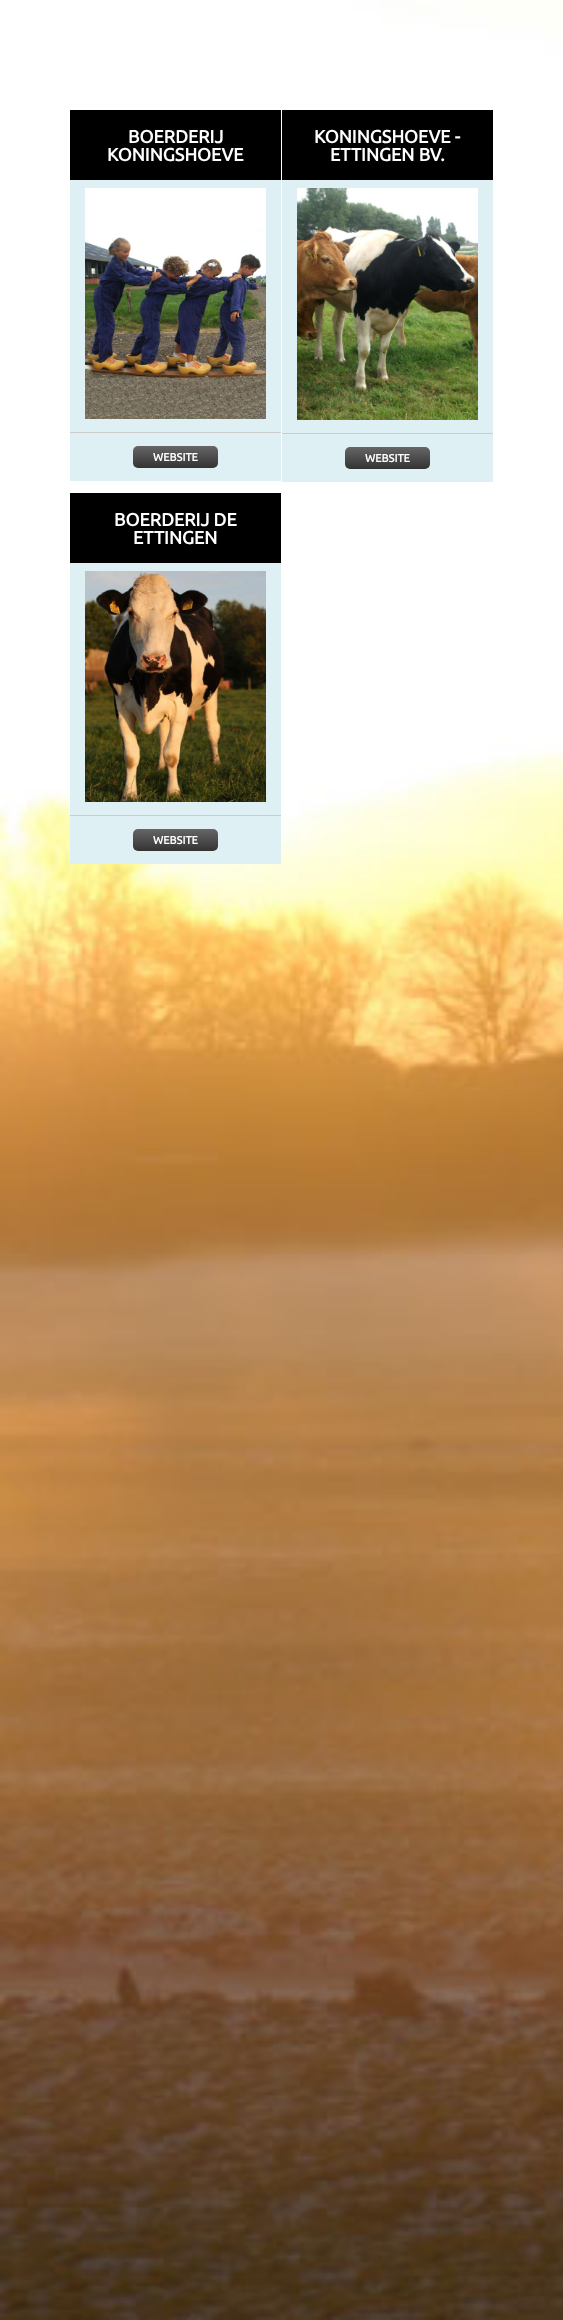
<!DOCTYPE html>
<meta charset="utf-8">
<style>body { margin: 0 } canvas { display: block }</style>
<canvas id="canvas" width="563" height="2320"></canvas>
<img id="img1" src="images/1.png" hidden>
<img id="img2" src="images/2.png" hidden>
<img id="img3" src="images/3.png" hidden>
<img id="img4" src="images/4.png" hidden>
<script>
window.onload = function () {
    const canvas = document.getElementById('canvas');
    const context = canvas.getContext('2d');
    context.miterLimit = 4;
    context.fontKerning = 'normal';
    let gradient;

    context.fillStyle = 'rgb(255, 255, 255)';
    context.fillRect(0, 0, 563, 2320);
    context.drawImage(document.getElementById('img1'), 0, 0, 563, 2320);
    context.fillStyle = 'rgb(0, 0, 0)';
    context.fillRect(70, 110, 211, 70);
    context.fillStyle = 'rgb(222, 240, 244)';
    context.fillRect(70, 180, 211, 252);
    context.fillStyle = 'rgb(204, 204, 204)';
    context.fillRect(70, 432, 211, 1);
    context.drawImage(document.getElementById('img2'), 85, 188, 181, 231);
    context.fillStyle = 'rgb(222, 240, 244)';
    context.fillRect(70, 433, 211, 48);
    gradient = context.createLinearGradient(176, 446, 176, 468);
    gradient.addColorStop(0, 'rgb(102, 102, 102)');
    gradient.addColorStop(1, 'rgb(51, 51, 51)');
    context.fillStyle = gradient;
    context.beginPath();
    context.roundRect(133, 446, 85, 22, 5);
    context.fill();
    context.fillStyle = 'rgb(0, 0, 0)';
    context.fillRect(282, 110, 211, 70);
    context.fillStyle = 'rgb(222, 240, 244)';
    context.fillRect(282, 180, 211, 253);
    context.fillStyle = 'rgb(204, 204, 204)';
    context.fillRect(282, 433, 211, 1);
    context.drawImage(document.getElementById('img3'), 297, 188, 181, 232);
    context.fillStyle = 'rgb(222, 240, 244)';
    context.fillRect(282, 434, 211, 48);
    gradient = context.createLinearGradient(388, 447, 388, 469);
    gradient.addColorStop(0, 'rgb(102, 102, 102)');
    gradient.addColorStop(1, 'rgb(51, 51, 51)');
    context.fillStyle = gradient;
    context.beginPath();
    context.roundRect(345, 447, 85, 22, 5);
    context.fill();
    context.fillStyle = 'rgb(0, 0, 0)';
    context.fillRect(70, 493, 211, 70);
    context.fillStyle = 'rgb(222, 240, 244)';
    context.fillRect(70, 563, 211, 252);
    context.fillStyle = 'rgb(204, 204, 204)';
    context.fillRect(70, 815, 211, 1);
    context.drawImage(document.getElementById('img4'), 85, 571, 181, 231);
    context.fillStyle = 'rgb(222, 240, 244)';
    context.fillRect(70, 816, 211, 48);
    gradient = context.createLinearGradient(176, 829, 176, 851);
    gradient.addColorStop(0, 'rgb(102, 102, 102)');
    gradient.addColorStop(1, 'rgb(51, 51, 51)');
    context.fillStyle = gradient;
    context.beginPath();
    context.roundRect(133, 829, 85, 22, 5);
    context.fill();
    context.font = 'bold 18px Ubuntu';
    context.fillStyle = 'rgb(255, 255, 255)';
    context.fillText('BOERDERIJ', 128, 143);
    context.fillText('KONINGSHOEVE', 107, 161);
    context.font = 'bold 11px Ubuntu';
    context.fillText('WEBSITE', 153, 461);
    context.font = 'bold 18px Ubuntu';
    context.fillText('KONINGSHOEVE -', 314, 143);
    context.fillText('ETTINGEN BV.', 330, 161);
    context.font = 'bold 11px Ubuntu';
    context.fillText('WEBSITE', 365, 462);
    context.font = 'bold 18px Ubuntu';
    context.fillText('BOERDERIJ DE', 114, 526);
    context.fillText('ETTINGEN', 133, 544);
    context.font = 'bold 11px Ubuntu';
    context.fillText('WEBSITE', 153, 844);
};
</script>
